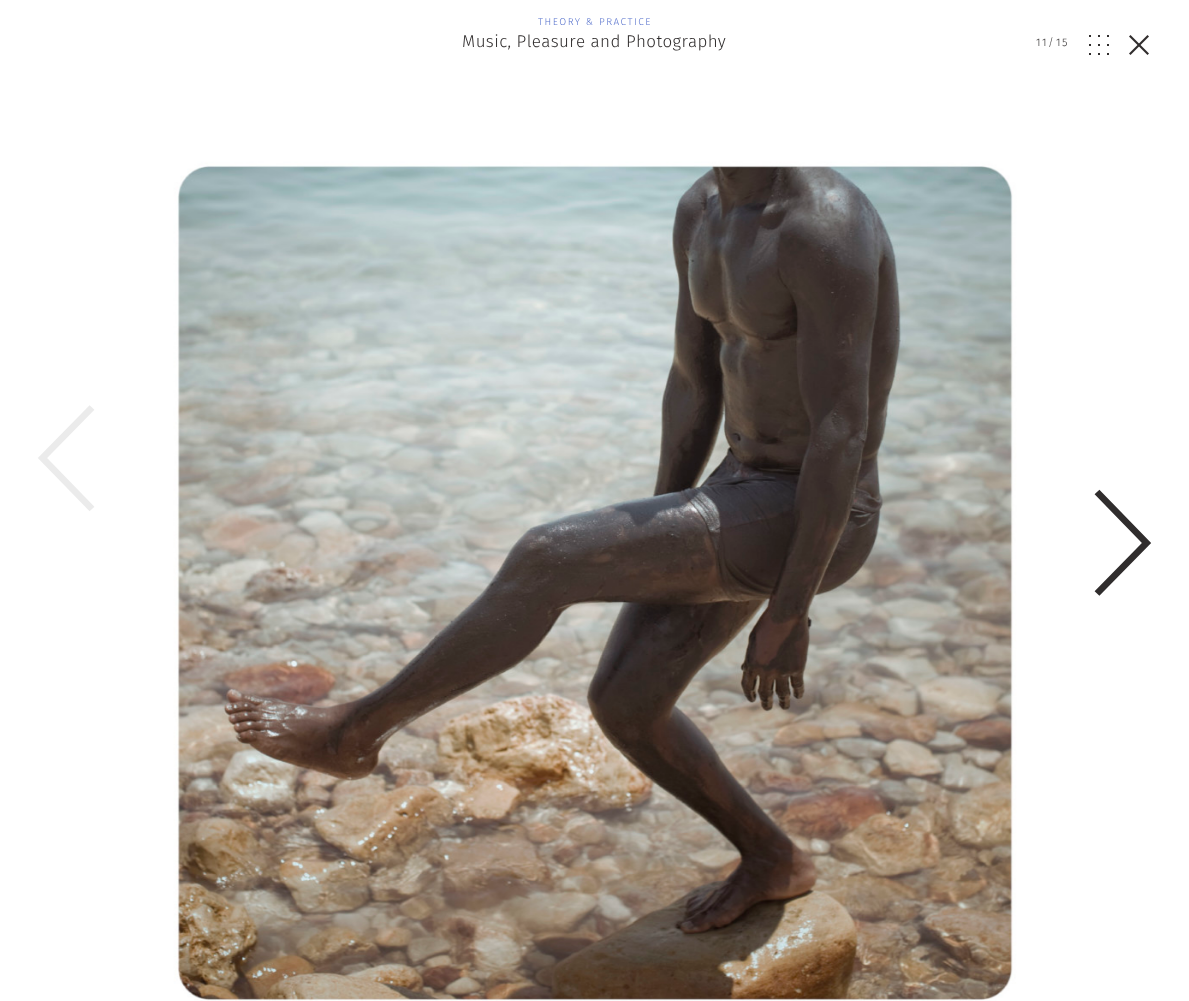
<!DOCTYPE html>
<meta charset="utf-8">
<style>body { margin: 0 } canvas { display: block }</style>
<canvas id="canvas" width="1189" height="1001"></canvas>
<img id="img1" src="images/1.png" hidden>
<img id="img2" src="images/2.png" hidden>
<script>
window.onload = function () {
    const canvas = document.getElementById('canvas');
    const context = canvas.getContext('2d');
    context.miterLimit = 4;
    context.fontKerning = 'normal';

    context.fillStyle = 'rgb(255, 255, 255)';
    context.fillRect(0, 0, 1189, 1001);
    context.drawImage(document.getElementById('img1'), 1089, 35, 20, 20);
    context.fillStyle = 'rgb(48, 45, 45)';
    context.beginPath();
    context.moveTo(1130.5, 35);
    context.lineTo(1149, 53.5);
    context.lineTo(1147.5, 55);
    context.lineTo(1129, 36.5);
    context.closePath();
    context.fill();
    context.beginPath();
    context.moveTo(1129, 53.5);
    context.lineTo(1147.5, 35);
    context.lineTo(1149, 36.5);
    context.lineTo(1130.5, 55);
    context.closePath();
    context.fill();
    context.beginPath();
    context.moveTo(92, 407.5);
    context.lineTo(42.5, 458);
    context.lineTo(92, 509);
    context.strokeStyle = 'rgb(235, 235, 235)';
    context.lineWidth = 6.7;
    context.stroke();
    context.drawImage(document.getElementById('img2'), 167, 155, 856, 846);
    context.beginPath();
    context.moveTo(1097, 593.5);
    context.lineTo(1146.5, 543);
    context.lineTo(1097, 492);
    context.strokeStyle = 'rgb(48, 45, 45)';
    context.stroke();
    context.letterSpacing = '1.5px';
    context.font = '300 10px Fira Sans';
    context.fillStyle = 'rgb(88, 115, 205)';
    context.fillText('THEORY & PRACTICE', 538, 25);
    context.letterSpacing = '0.4px';
    context.font = '300 17px Fira Sans';
    context.fillStyle = 'rgb(48, 45, 45)';
    context.fillText('Music, Pleasure and Photography', 462, 47);
    context.letterSpacing = '1.5px';
    context.font = '300 11px Fira Sans';
    context.fillText('11/', 1036, 46);
    context.fillText('15', 1056, 46);
};
</script>
